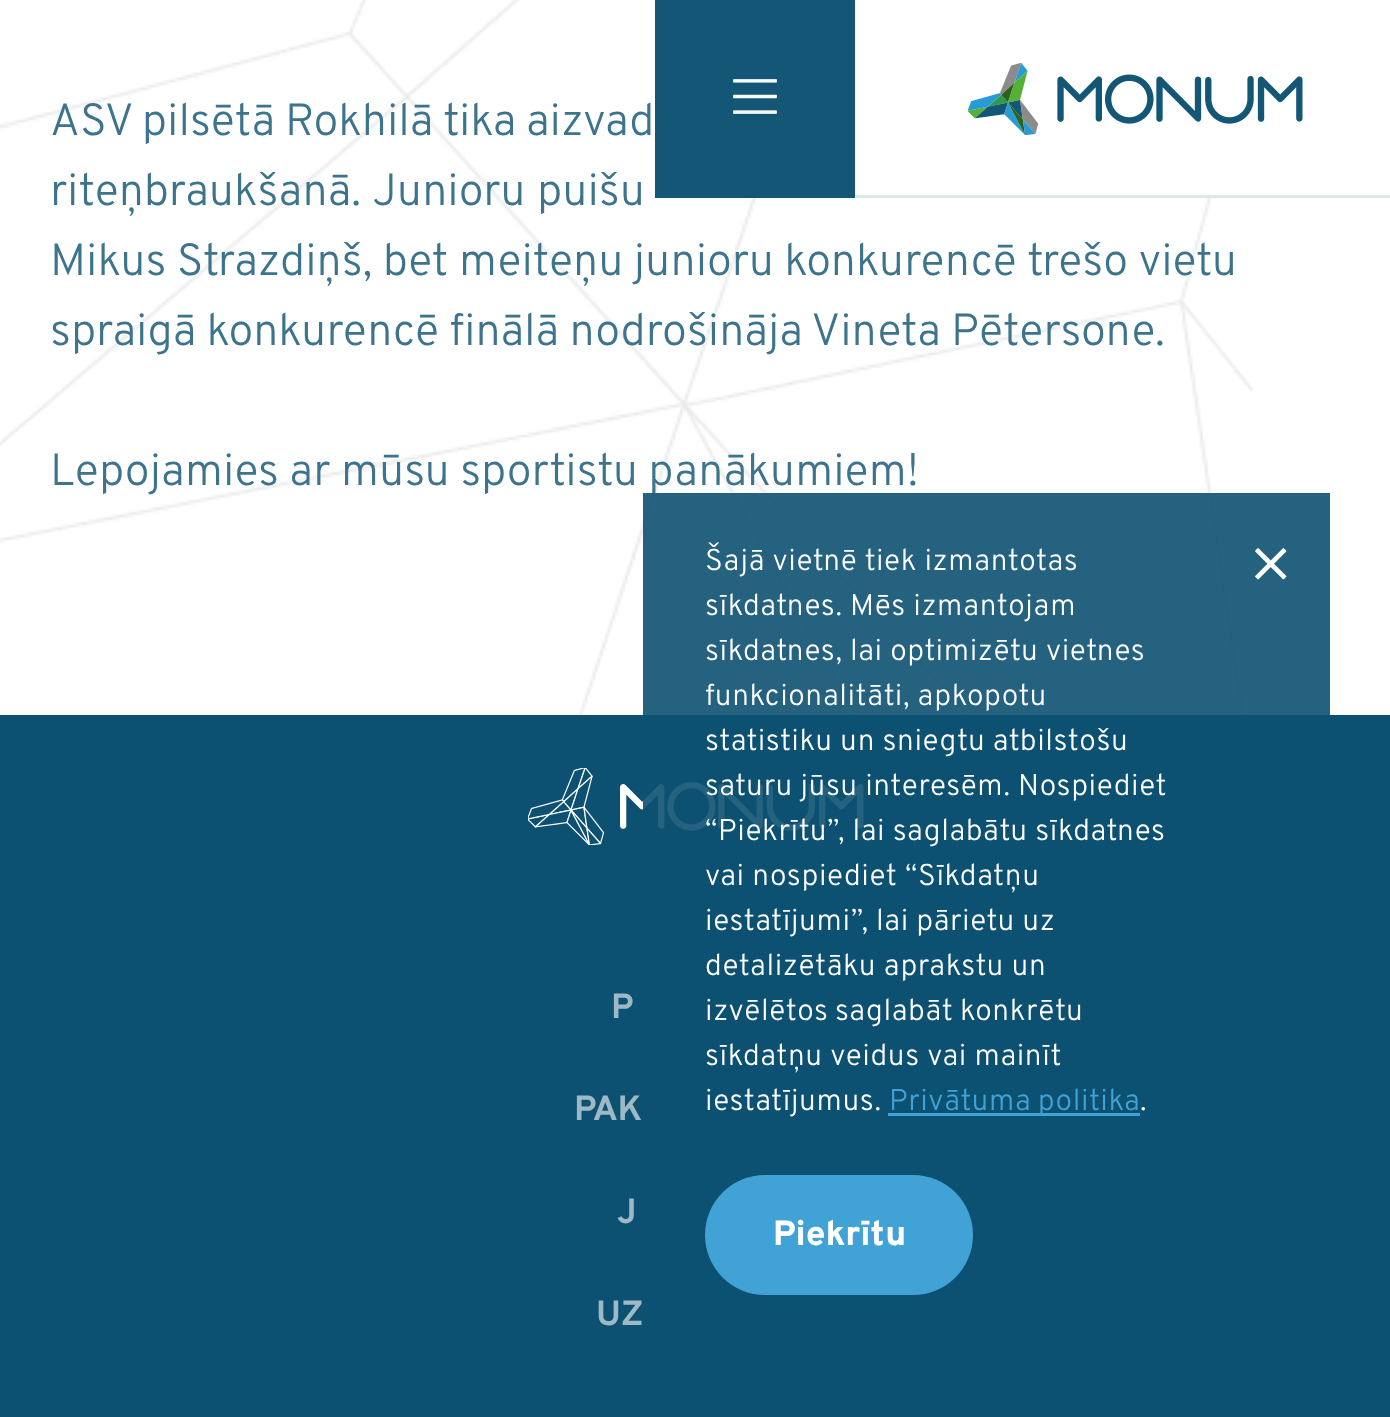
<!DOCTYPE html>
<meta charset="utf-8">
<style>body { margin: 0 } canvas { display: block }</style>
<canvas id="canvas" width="1390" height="1417"></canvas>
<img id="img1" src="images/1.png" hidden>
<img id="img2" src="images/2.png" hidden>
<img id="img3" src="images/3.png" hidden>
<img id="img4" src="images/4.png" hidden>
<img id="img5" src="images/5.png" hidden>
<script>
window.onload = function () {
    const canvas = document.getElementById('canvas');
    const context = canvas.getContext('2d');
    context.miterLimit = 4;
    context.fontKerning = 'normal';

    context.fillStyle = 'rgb(255, 255, 255)';
    context.fillRect(0, 0, 1390, 1417);
    context.drawImage(document.getElementById('img1'), 0, 0, 1253, 715);
    context.fillStyle = 'rgba(255, 255, 255, 0.97)';
    context.fillRect(752, 0, 501, 198);
    context.fillStyle = 'rgba(220, 231, 234, 0.97)';
    context.fillRect(655, 195, 735, 3);
    context.fillStyle = 'rgba(12, 81, 113, 0.97)';
    context.fillRect(655, 0, 200, 198);
    context.drawImage(document.getElementById('img2'), 733, 79, 44, 35);
    context.drawImage(document.getElementById('img3'), 968, 63, 335, 72);
    context.fillStyle = 'rgb(12, 81, 113)';
    context.fillRect(0, 715, 1390, 702);
    context.drawImage(document.getElementById('img4'), 528, 768, 336, 77);
    context.fillStyle = 'rgb(64, 162, 213)';
    context.fillRect(888, 1113, 252, 3);
    context.beginPath();
    context.roundRect(705, 1175, 268, 120, 60);
    context.fill();
    context.wordSpacing = '-0.5px';
    context.font = '300 45px Overpass';
    context.fillStyle = 'rgb(61, 116, 141)';
    context.fillText('ASV pilsētā Rokhilā tika aizvad', 50, 135);
    context.wordSpacing = '1px';
    context.fillText('riteņbraukšanā. Junioru puišu', 50, 205);
    context.wordSpacing = '0px';
    context.fillText('Mikus Strazdiņš, bet meiteņu junioru konkurencē trešo vietu', 50, 275);
    context.fillText('spraigā konkurencē finālā nodrošināja Vineta Pētersone.', 50, 345);
    context.fillText('Lepojamies ar mūsu sportistu panākumiem!', 50, 485);
    context.font = 'bold 35px Overpass';
    context.fillStyle = 'rgb(158, 185, 198)';
    context.fillText('P', 611, 1018);
    context.fillText('PAK', 574, 1120);
    context.fillText('J', 617, 1223);
    context.fillText('UZ', 596, 1325);
    context.fillStyle = 'rgba(12, 81, 113, 0.9)';
    context.fillRect(643, 493, 687, 338);
    context.letterSpacing = '0.6px';
    context.font = '300 30px Overpass';
    context.fillStyle = 'rgb(255, 255, 255)';
    context.fillText('Šajā vietnē tiek izmantotas', 705, 570);
    context.fillText('sīkdatnes. Mēs izmantojam', 705, 615);
    context.fillText('sīkdatnes, lai optimizētu vietnes', 705, 660);
    context.fillText('funkcionalitāti, apkopotu', 705, 705);
    context.fillText('statistiku un sniegtu atbilstošu', 705, 750);
    context.fillText('saturu jūsu interesēm. Nospiediet', 705, 795);
    context.fillText('“Piekrītu”, lai saglabātu sīkdatnes', 705, 840);
    context.fillText('vai nospiediet “Sīkdatņu', 705, 885);
    context.fillText('iestatījumi”, lai pārietu uz', 705, 930);
    context.fillText('detalizētāku aprakstu un', 705, 975);
    context.wordSpacing = '-1px';
    context.fillText('izvēlētos saglabāt konkrētu', 705, 1020);
    context.wordSpacing = '0px';
    context.fillText('sīkdatņu veidus vai mainīt', 705, 1065);
    context.fillText('iestatījumus.', 705, 1110);
    context.wordSpacing = '-1px';
    context.fillStyle = 'rgb(64, 162, 213)';
    context.fillText('Privātuma politika', 889, 1110);
    context.wordSpacing = '0px';
    context.fillStyle = 'rgb(255, 255, 255)';
    context.fillText('.', 1140, 1110);
    context.drawImage(document.getElementById('img5'), 1255, 548, 32, 32);
    context.letterSpacing = '0px';
    context.font = '800 35px Overpass';
    context.fillText('Piekrītu', 773, 1245);
};
</script>
